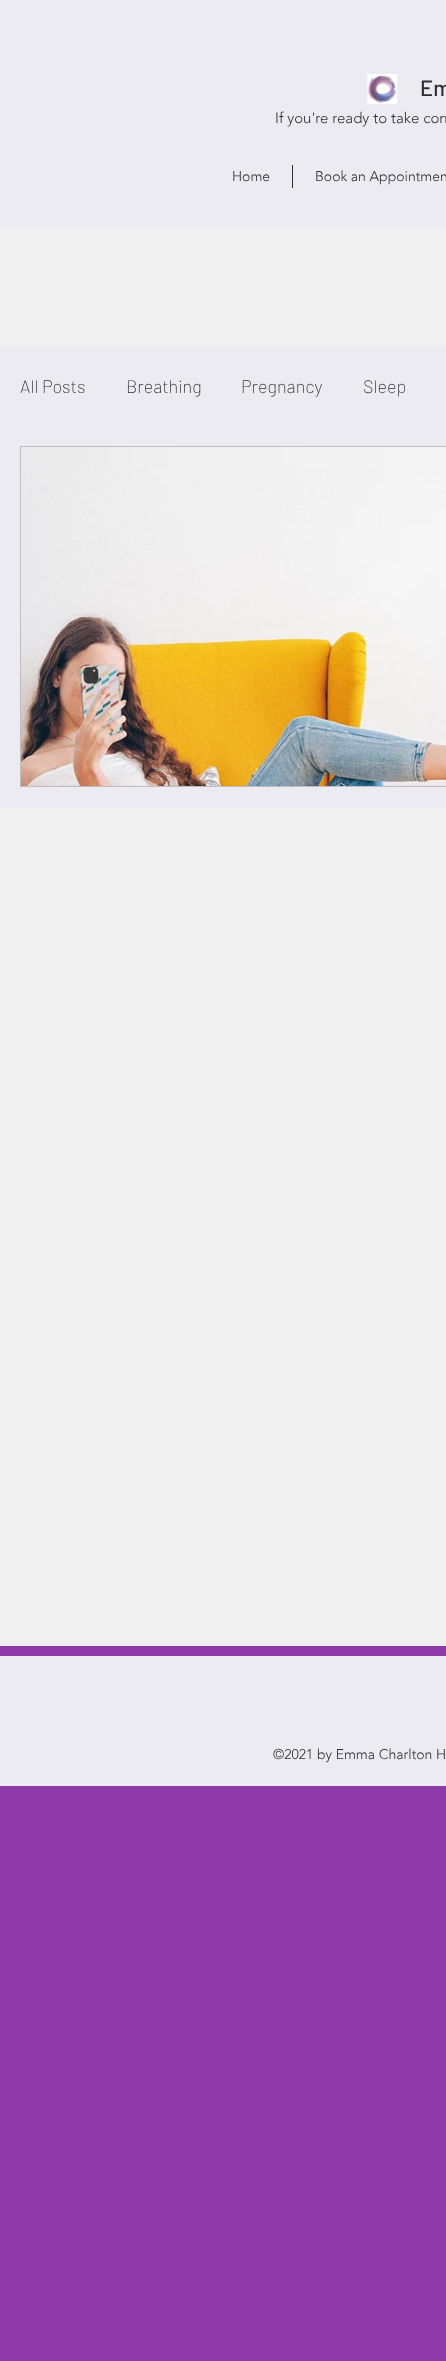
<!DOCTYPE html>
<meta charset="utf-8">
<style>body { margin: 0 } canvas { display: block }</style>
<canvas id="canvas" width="446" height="2361"></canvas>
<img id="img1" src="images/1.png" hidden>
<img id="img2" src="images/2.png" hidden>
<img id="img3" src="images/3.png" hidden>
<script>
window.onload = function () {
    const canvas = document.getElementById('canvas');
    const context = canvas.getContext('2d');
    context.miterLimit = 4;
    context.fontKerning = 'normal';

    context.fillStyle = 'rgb(142, 58, 171)';
    context.fillRect(0, 0, 446, 2361);
    context.fillStyle = 'rgb(237, 235, 242)';
    context.fillRect(0, 0, 446, 226);
    context.drawImage(document.getElementById('img1'), 367, 74, 31, 30);
    context.fillStyle = 'rgb(47, 47, 48)';
    context.fillRect(292, 165, 1, 23);
    context.fillStyle = 'rgb(240, 240, 240)';
    context.fillRect(0, 226, 446, 1420);
    context.fillStyle = 'rgb(237, 235, 242)';
    context.fillRect(0, 346, 446, 462);
    context.strokeStyle = 'rgb(190, 188, 194)';
    context.strokeRect(20.5, 446.5, 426, 340);
    context.drawImage(document.getElementById('img2'), 21, 447, 425, 19);
    context.drawImage(document.getElementById('img3'), 21, 466, 425, 320);
    context.fillRect(0, 1656, 446, 130);
    context.font = '500 22px Barlow';
    context.fillStyle = 'rgb(47, 47, 48)';
    context.fillText('Em', 420, 96);
    context.font = '300 15px "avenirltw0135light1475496"';
    context.fillText('If you\'re ready to take con', 275, 123);
    context.font = '300 14px "avenirltw0135light1475496"';
    context.fillText('Home', 232, 181);
    context.fillText('Book an Appointmen', 315, 181);
    context.font = '200 18px Barlow';
    context.fillText('All Posts', 20, 393);
    context.fillText('Breathing', 126, 393);
    context.fillText('Pregnancy', 241, 393);
    context.fillText('Sleep', 363, 393);
    context.font = '300 14px "avenirltw0135light1475496"';
    context.fillText('©2021 by Emma Charlton H', 273, 1759);
};
</script>
